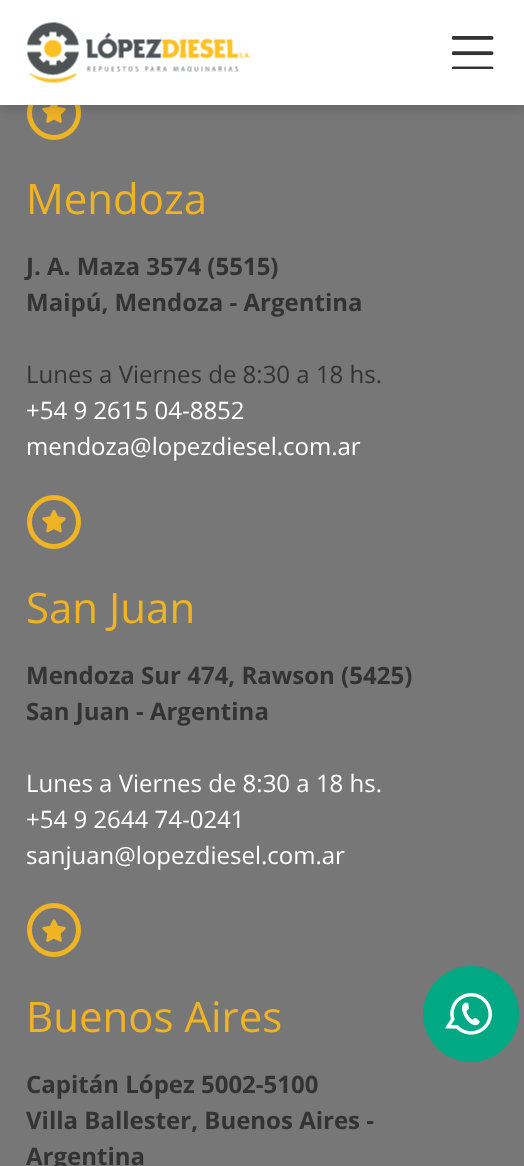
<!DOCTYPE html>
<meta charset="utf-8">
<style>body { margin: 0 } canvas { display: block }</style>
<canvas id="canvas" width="524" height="1166"></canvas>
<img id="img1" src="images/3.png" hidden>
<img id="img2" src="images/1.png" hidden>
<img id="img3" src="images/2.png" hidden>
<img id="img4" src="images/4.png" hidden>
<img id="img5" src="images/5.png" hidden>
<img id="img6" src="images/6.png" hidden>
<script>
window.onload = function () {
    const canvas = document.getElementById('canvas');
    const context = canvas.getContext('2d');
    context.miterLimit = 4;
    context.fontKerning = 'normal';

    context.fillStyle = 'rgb(119, 119, 119)';
    context.fillRect(0, 0, 524, 1166);
    context.beginPath();
    context.arc(54, 113, 24.5, 0, 2 * Math.PI);
    context.strokeStyle = 'rgb(240, 179, 35)';
    context.lineWidth = 5;
    context.stroke();
    context.drawImage(document.getElementById('img1'), 42, 105, 24, 18);
    context.fillStyle = 'rgba(0, 0, 0, 0.12)';
    context.filter = 'blur(4.5px)';
    context.beginPath();
    context.rect(0, 5, 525, 105);
    context.fill();
    context.filter = 'none';
    context.fillStyle = 'rgb(255, 255, 255)';
    context.fillRect(0, 0, 524, 105);
    context.drawImage(document.getElementById('img2'), 27, 22, 224, 61);
    context.drawImage(document.getElementById('img3'), 452, 36, 42, 33);
    context.beginPath();
    context.arc(54, 522, 24.5, 0, 2 * Math.PI);
    context.stroke();
    context.drawImage(document.getElementById('img4'), 42, 509, 24, 24);
    context.beginPath();
    context.arc(54, 930, 24.5, 0, 2 * Math.PI);
    context.stroke();
    context.drawImage(document.getElementById('img5'), 42, 919, 24, 23);
    context.fillStyle = 'rgb(1, 168, 132)';
    context.beginPath();
    context.arc(471, 1014, 48, 0, 2 * Math.PI);
    context.fill();
    context.drawImage(document.getElementById('img6'), 445, 993, 47, 42);
    context.font = '42px Open Sans';
    context.fillStyle = 'rgb(240, 179, 35)';
    context.fillText('Mendoza', 26, 214);
    context.font = 'bold 24px Open Sans';
    context.fillStyle = 'rgb(51, 51, 51)';
    context.fillText('J. A. Maza 3574 (5515)', 26, 275);
    context.fillText('Maipú, Mendoza - Argentina', 26, 311);
    context.font = '24px Open Sans';
    context.fillText('Lunes a Viernes de 8:30 a 18 hs.', 26, 383);
    context.fillStyle = 'rgb(255, 255, 255)';
    context.fillText('+54 9 2615 04-8852', 26, 419);
    context.fillText('mendoza@lopezdiesel.com.ar', 26, 455);
    context.font = '42px Open Sans';
    context.fillStyle = 'rgb(240, 179, 35)';
    context.fillText('San Juan', 26, 623);
    context.font = 'bold 24px Open Sans';
    context.fillStyle = 'rgb(51, 51, 51)';
    context.fillText('Mendoza Sur 474, Rawson (5425)', 26, 684);
    context.fillText('San Juan - Argentina', 26, 720);
    context.font = '24px Open Sans';
    context.fillStyle = 'rgb(255, 255, 255)';
    context.fillText('Lunes a Viernes de 8:30 a 18 hs.', 26, 792);
    context.fillText('+54 9 2644 74-0241', 26, 828);
    context.fillText('sanjuan@lopezdiesel.com.ar', 26, 864);
    context.font = '42px Open Sans';
    context.fillStyle = 'rgb(240, 179, 35)';
    context.fillText('Buenos Aires', 26, 1032);
    context.font = 'bold 24px Open Sans';
    context.fillStyle = 'rgb(51, 51, 51)';
    context.fillText('Capitán López 5002-5100', 26, 1093);
    context.fillText('Villa Ballester, Buenos Aires -', 26, 1129);
    context.fillText('Argentina', 26, 1165);
};
</script>
